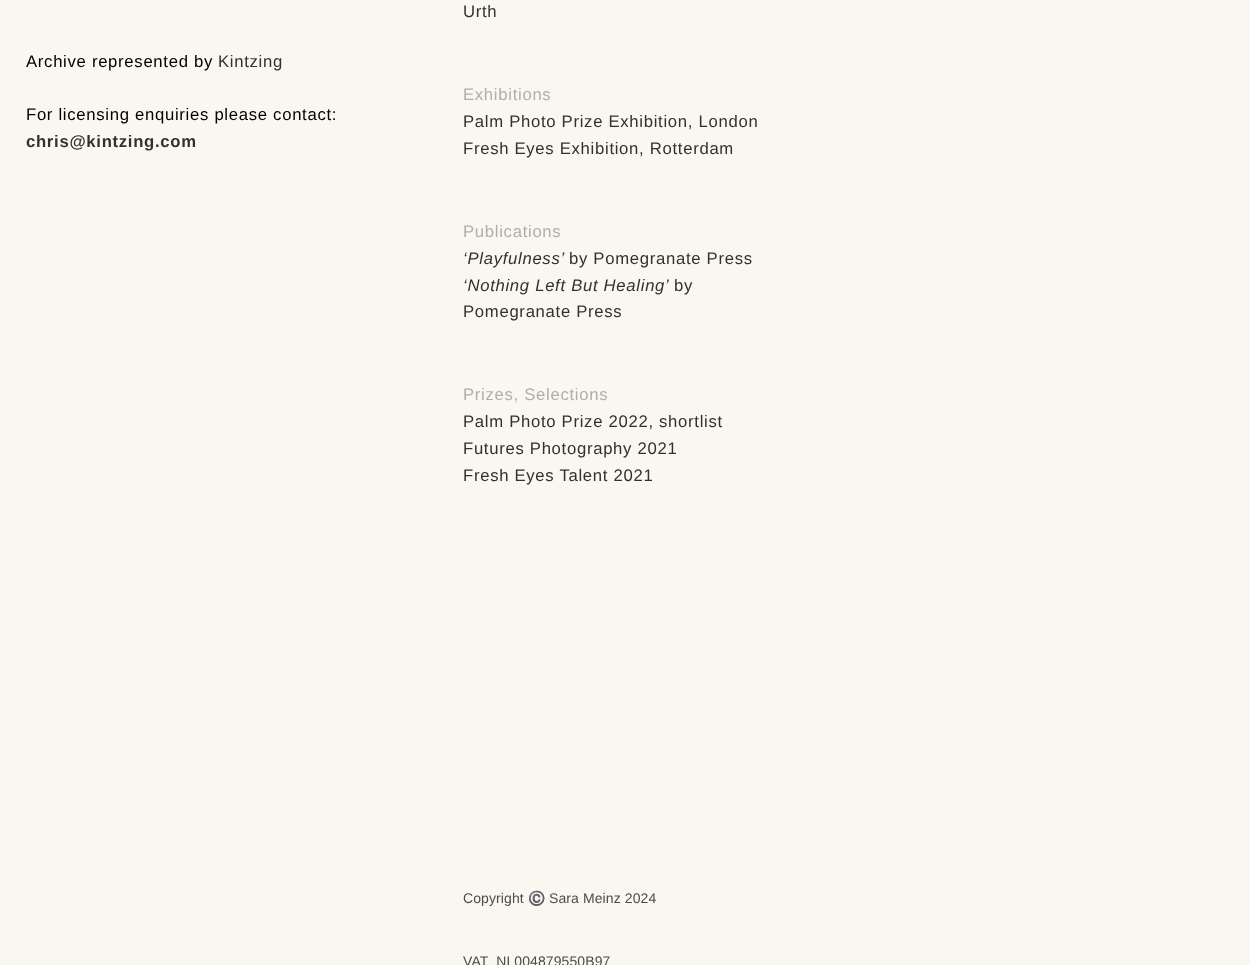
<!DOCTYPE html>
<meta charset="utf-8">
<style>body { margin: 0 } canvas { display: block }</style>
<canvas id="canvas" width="1250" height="965"></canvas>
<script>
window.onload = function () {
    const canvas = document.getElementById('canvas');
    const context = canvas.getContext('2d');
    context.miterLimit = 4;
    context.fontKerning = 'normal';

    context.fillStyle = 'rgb(249, 247, 240)';
    context.fillRect(0, 0, 1250, 965);
    context.letterSpacing = '0.7px';
    context.font = '16.7px Liberation Sans';
    context.fillStyle = 'rgb(0, 0, 0)';
    context.fillText('Archive represented by', 26, 67);
    context.fillStyle = 'rgb(50, 49, 48)';
    context.fillText('Kintzing', 218, 67);
    context.fillStyle = 'rgb(0, 0, 0)';
    context.fillText('For licensing enquiries please contact:', 26, 120);
    context.font = 'bold 16.7px Liberation Sans';
    context.fillStyle = 'rgb(50, 49, 48)';
    context.fillText('chris@kintzing.com', 26, 147);
    context.font = '16.7px Liberation Sans';
    context.fillText('Urth', 463, 17);
    context.fillStyle = 'rgb(174, 174, 174)';
    context.fillText('Exhibitions', 463, 100);
    context.fillStyle = 'rgb(50, 49, 48)';
    context.fillText('Palm Photo Prize Exhibition, London', 463, 127);
    context.fillText('Fresh Eyes Exhibition, Rotterdam', 463, 154);
    context.fillStyle = 'rgb(174, 174, 174)';
    context.fillText('Publications', 463, 237);
    context.font = 'italic 16.7px Liberation Sans';
    context.fillStyle = 'rgb(50, 49, 48)';
    context.fillText('‘Playfulness’', 463, 264);
    context.font = '16.7px Liberation Sans';
    context.fillText('by Pomegranate Press', 569, 264);
    context.font = 'italic 16.7px Liberation Sans';
    context.fillText('‘Nothing Left But Healing’', 463, 291);
    context.font = '16.7px Liberation Sans';
    context.fillText('by', 674, 291);
    context.fillText('Pomegranate Press', 463, 317);
    context.fillStyle = 'rgb(174, 174, 174)';
    context.fillText('Prizes, Selections', 463, 400);
    context.fillStyle = 'rgb(50, 49, 48)';
    context.fillText('Palm Photo Prize 2022, shortlist', 463, 427);
    context.fillText('Futures Photography 2021', 463, 454);
    context.fillText('Fresh Eyes Talent 2021', 463, 481);
    context.letterSpacing = '0.1px';
    context.font = '14px Liberation Sans';
    context.fillStyle = 'rgb(75, 75, 75)';
    context.fillText('Copyright', 463, 903);
    context.font = '14px Noto Color Emoji';
    context.fillText('©️', 528, 903);
    context.font = '14px Liberation Sans';
    context.fillText('Sara Meinz 2024', 549, 903);
    context.fillText('VAT  NL004879550B97', 463, 966);
};
</script>
